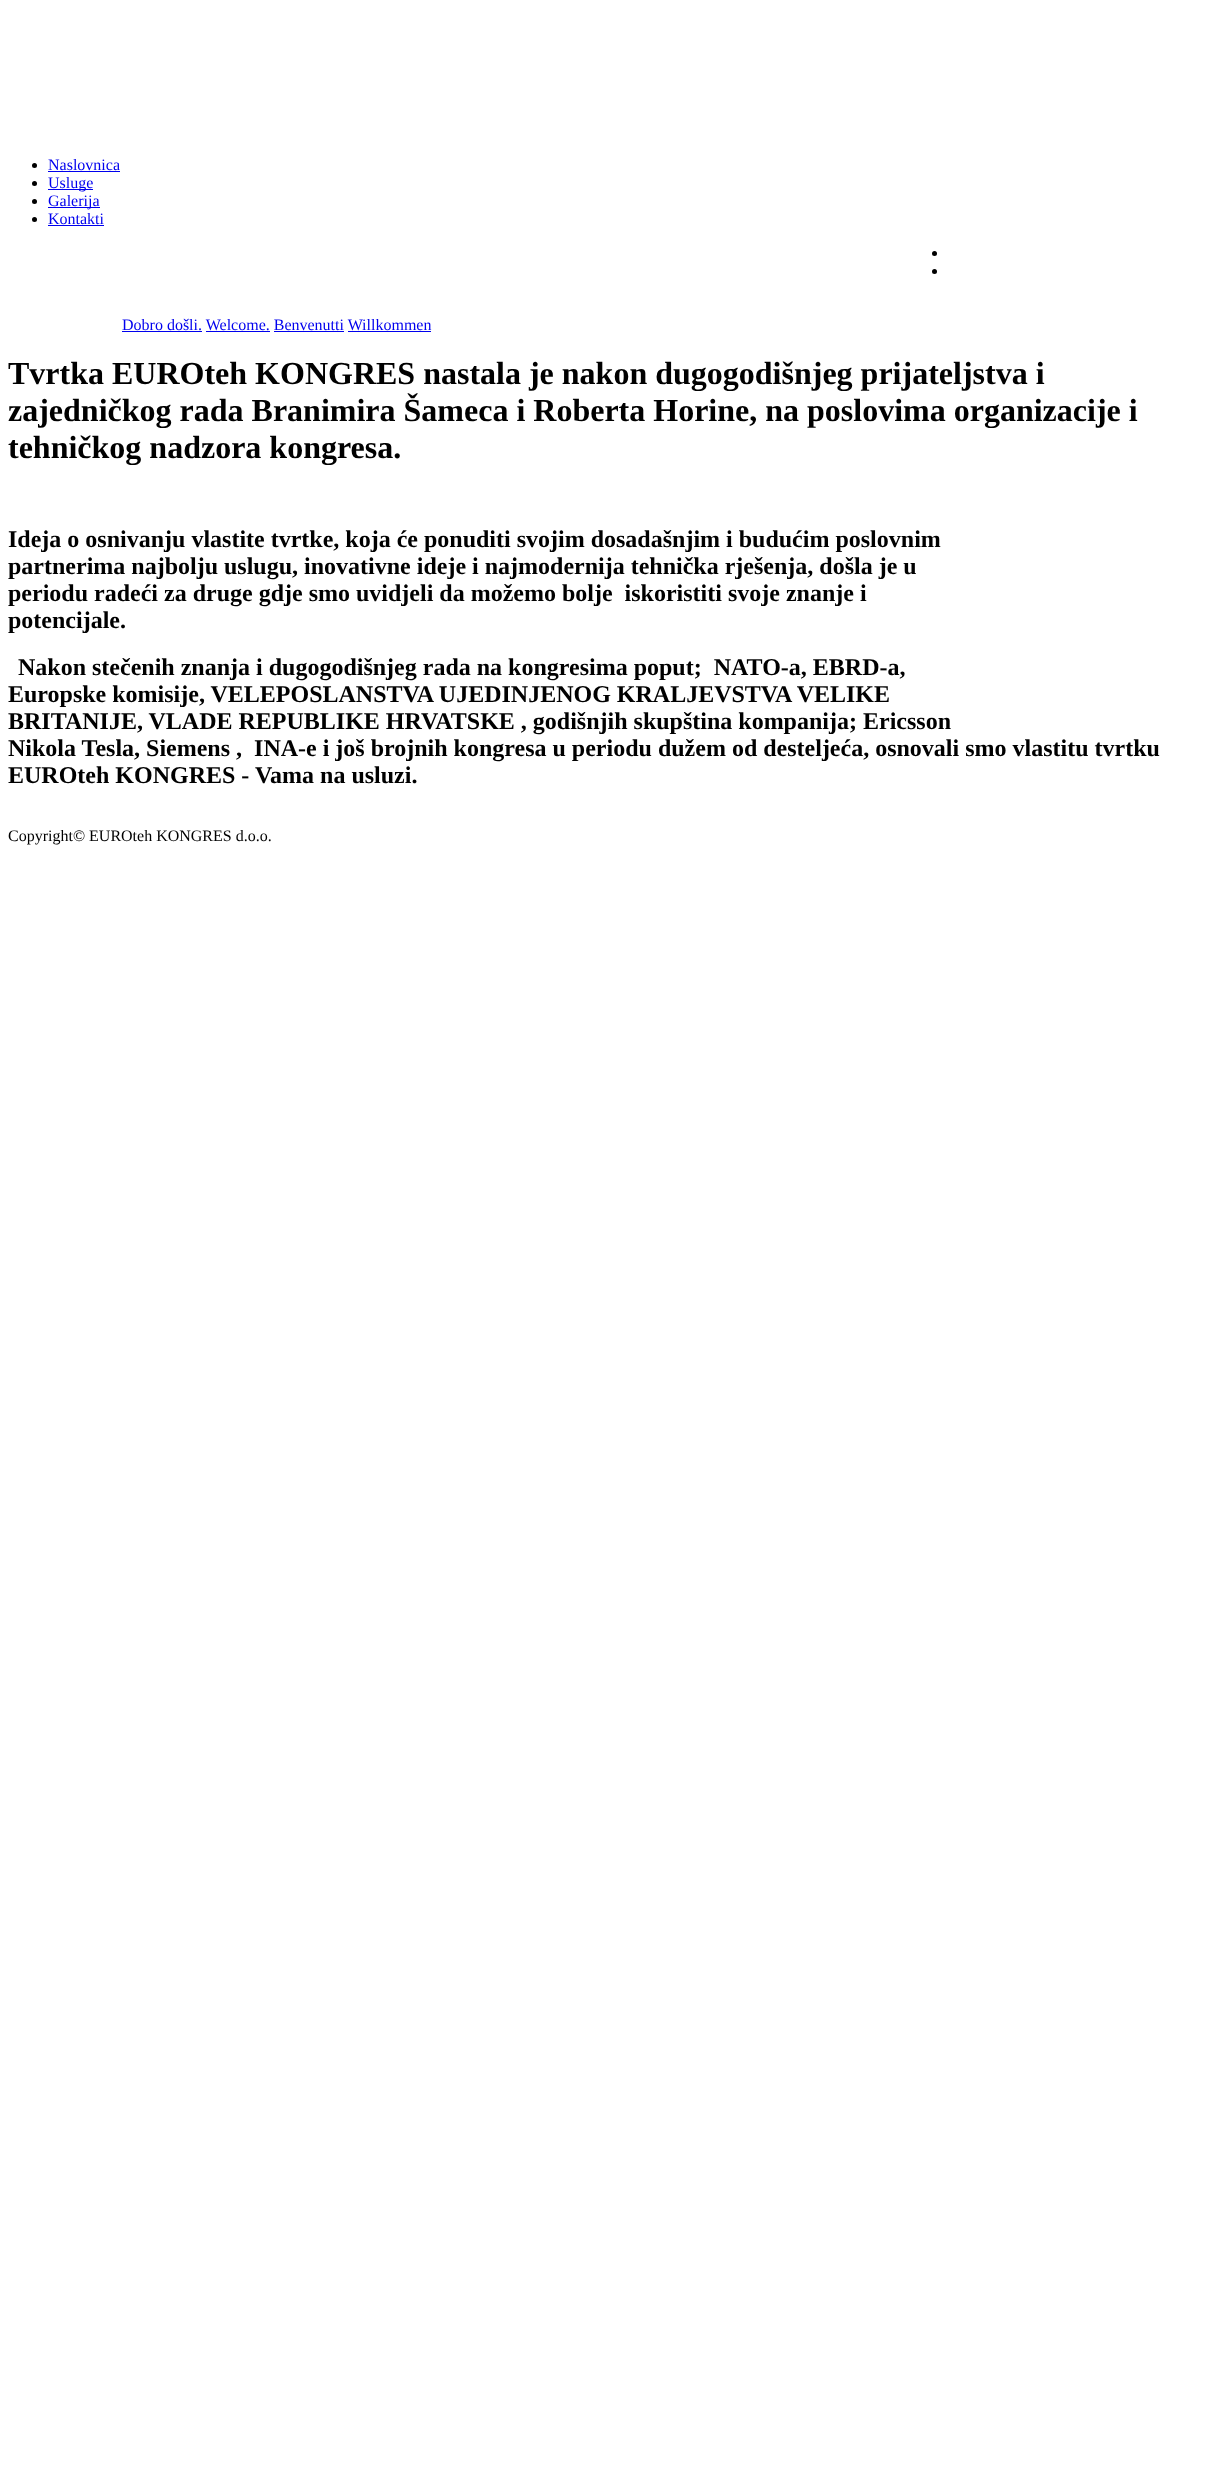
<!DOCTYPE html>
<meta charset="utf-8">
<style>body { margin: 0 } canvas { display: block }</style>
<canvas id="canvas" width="1224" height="2489"></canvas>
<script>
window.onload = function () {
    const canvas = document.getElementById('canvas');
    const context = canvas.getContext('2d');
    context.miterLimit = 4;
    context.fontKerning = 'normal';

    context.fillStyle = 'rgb(255, 255, 255)';
    context.fillRect(0, 0, 1224, 2489);
    context.fillStyle = 'rgb(0, 0, 0)';
    context.beginPath();
    context.arc(34.5, 165.5, 2.5, 0, 2 * Math.PI);
    context.fill();
    context.fillStyle = 'rgb(0, 0, 238)';
    context.fillRect(48, 171, 72, 1);
    context.fillStyle = 'rgb(0, 0, 0)';
    context.beginPath();
    context.arc(34.5, 183.5, 2.5, 0, 2 * Math.PI);
    context.fill();
    context.fillStyle = 'rgb(0, 0, 238)';
    context.fillRect(48, 189, 45, 1);
    context.fillStyle = 'rgb(0, 0, 0)';
    context.beginPath();
    context.arc(34.5, 201.5, 2.5, 0, 2 * Math.PI);
    context.fill();
    context.fillStyle = 'rgb(0, 0, 238)';
    context.fillRect(48, 207, 52, 1);
    context.fillStyle = 'rgb(0, 0, 0)';
    context.beginPath();
    context.arc(34.5, 219.5, 2.5, 0, 2 * Math.PI);
    context.fill();
    context.fillStyle = 'rgb(0, 0, 238)';
    context.fillRect(48, 225, 56, 1);
    context.fillStyle = 'rgb(0, 0, 0)';
    context.beginPath();
    context.arc(934.5, 253.5, 2.5, 0, 2 * Math.PI);
    context.fill();
    context.beginPath();
    context.arc(934.5, 271.5, 2.5, 0, 2 * Math.PI);
    context.fill();
    context.fillStyle = 'rgb(0, 0, 238)';
    context.fillRect(122, 331, 80, 1);
    context.fillRect(206, 331, 64, 1);
    context.fillRect(274, 331, 70, 1);
    context.fillRect(348, 331, 83, 1);
    context.font = '16px Liberation Serif';
    context.fillText('Naslovnica', 48, 170);
    context.fillText('Usluge', 48, 188);
    context.fillText('Galerija', 48, 206);
    context.fillText('Kontakti', 48, 224);
    context.fillText('Dobro došli. Welcome. Benvenutti Willkommen', 122, 330);
    context.font = 'bold 32px Liberation Serif';
    context.fillStyle = 'rgb(0, 0, 0)';
    context.fillText('Tvrtka EUROteh KONGRES nastala je nakon dugogodišnjeg prijateljstva i', 8, 384);
    context.fillText('zajedničkog rada Branimira Šameca i Roberta Horine, na poslovima organizacije i', 8, 421);
    context.fillText('tehničkog nadzora kongresa.', 8, 458);
    context.font = 'bold 24px Liberation Serif';
    context.fillText('Ideja o osnivanju vlastite tvrtke, koja će ponuditi svojim dosadašnjim i budućim poslovnim', 8, 547);
    context.fillText('partnerima najbolju uslugu, inovativne ideje i najmodernija tehnička rješenja, došla je u', 8, 574);
    context.fillText('periodu radeći za druge gdje smo uvidjeli da možemo bolje  iskoristiti svoje znanje i', 8, 601);
    context.fillText('potencijale.', 8, 628);
    context.fillText('Nakon stečenih znanja i dugogodišnjeg rada na kongresima poput;  NATO-a, EBRD-a,', 18, 675);
    context.fillText('Europske komisije, VELEPOSLANSTVA UJEDINJENOG KRALJEVSTVA VELIKE', 8, 702);
    context.fillText('BRITANIJE, VLADE REPUBLIKE HRVATSKE , godišnjih skupština kompanija; Ericsson', 8, 729);
    context.fillText('Nikola Tesla, Siemens ,  INA-e i još brojnih kongresa u periodu dužem od desteljeća, osnovali smo vlastitu tvrtku', 8, 756);
    context.fillText('EUROteh KONGRES - Vama na usluzi.', 8, 783);
    context.font = '16px Liberation Serif';
    context.fillText('Copyright© EUROteh KONGRES d.o.o.', 8, 841);
};
</script>
